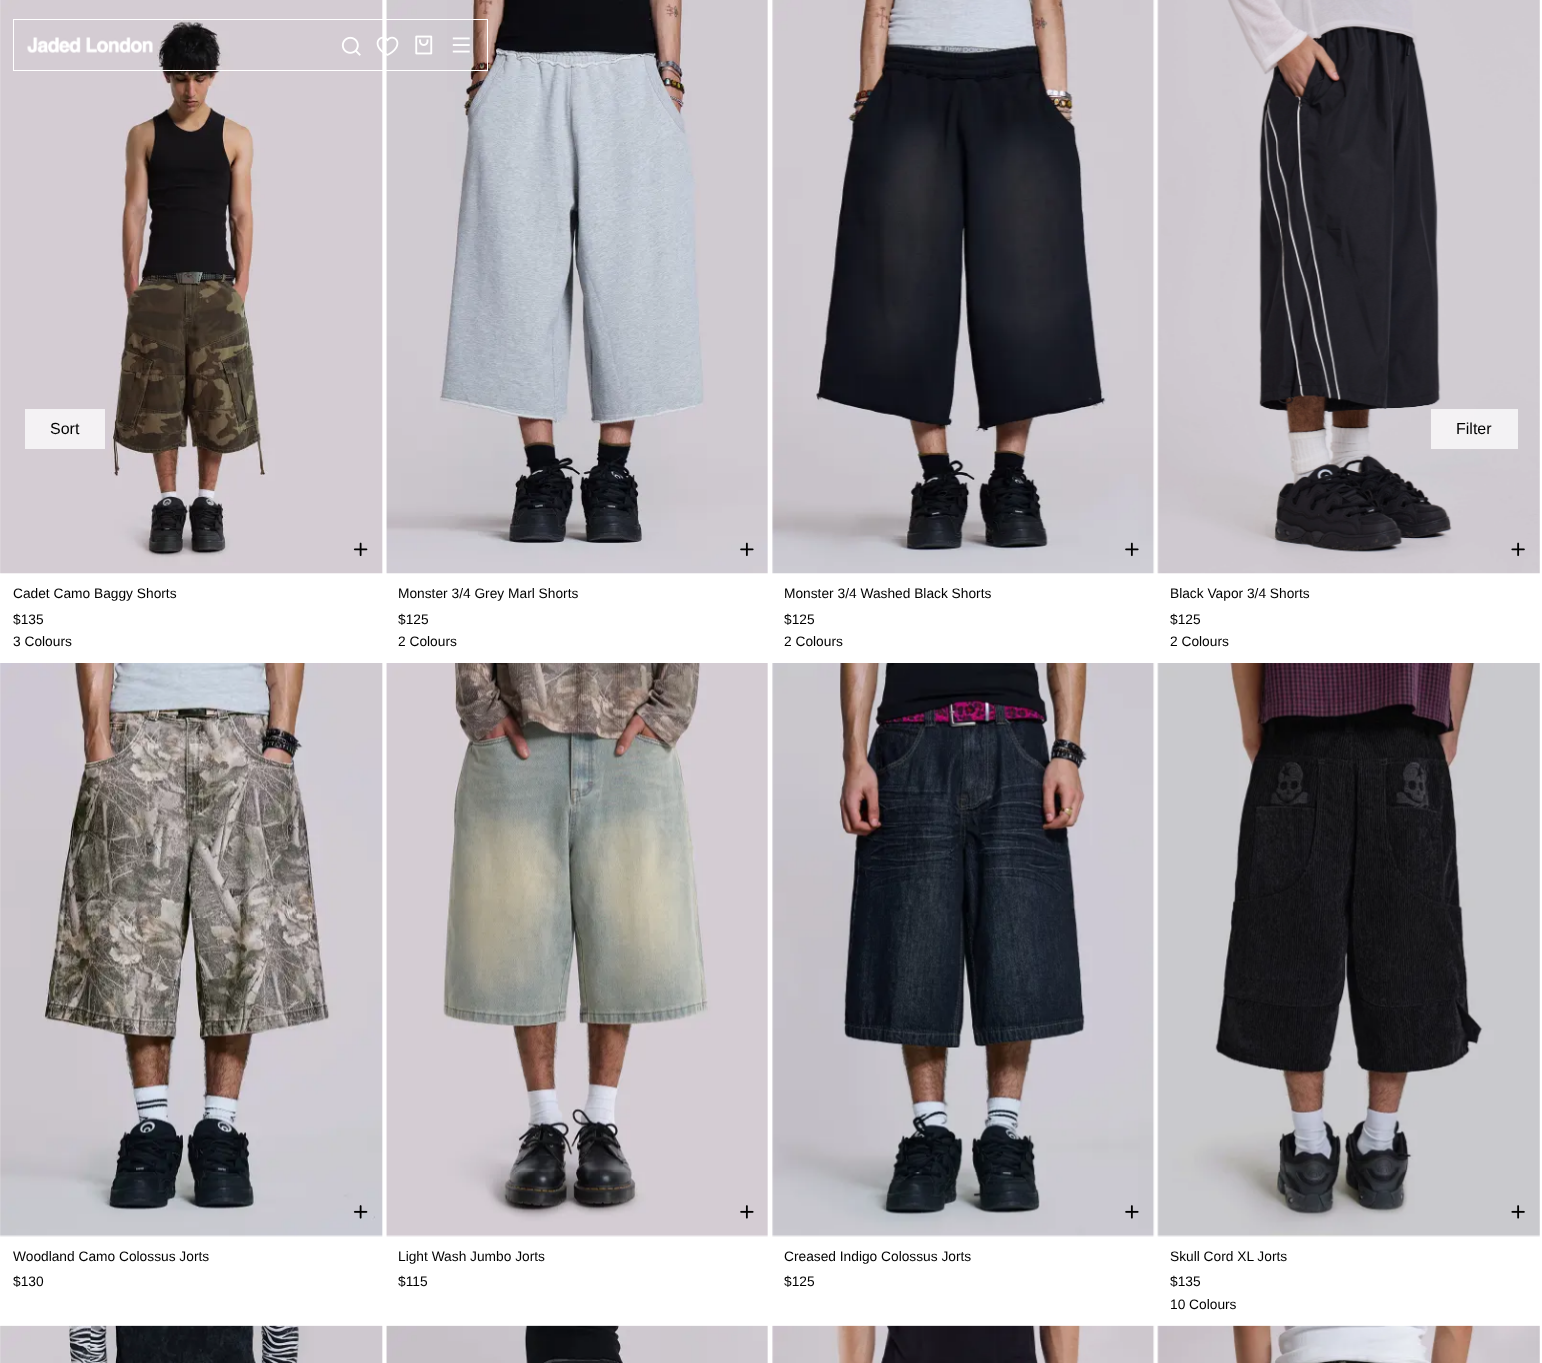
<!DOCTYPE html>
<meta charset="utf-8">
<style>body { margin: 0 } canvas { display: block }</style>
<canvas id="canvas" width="1542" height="1363"></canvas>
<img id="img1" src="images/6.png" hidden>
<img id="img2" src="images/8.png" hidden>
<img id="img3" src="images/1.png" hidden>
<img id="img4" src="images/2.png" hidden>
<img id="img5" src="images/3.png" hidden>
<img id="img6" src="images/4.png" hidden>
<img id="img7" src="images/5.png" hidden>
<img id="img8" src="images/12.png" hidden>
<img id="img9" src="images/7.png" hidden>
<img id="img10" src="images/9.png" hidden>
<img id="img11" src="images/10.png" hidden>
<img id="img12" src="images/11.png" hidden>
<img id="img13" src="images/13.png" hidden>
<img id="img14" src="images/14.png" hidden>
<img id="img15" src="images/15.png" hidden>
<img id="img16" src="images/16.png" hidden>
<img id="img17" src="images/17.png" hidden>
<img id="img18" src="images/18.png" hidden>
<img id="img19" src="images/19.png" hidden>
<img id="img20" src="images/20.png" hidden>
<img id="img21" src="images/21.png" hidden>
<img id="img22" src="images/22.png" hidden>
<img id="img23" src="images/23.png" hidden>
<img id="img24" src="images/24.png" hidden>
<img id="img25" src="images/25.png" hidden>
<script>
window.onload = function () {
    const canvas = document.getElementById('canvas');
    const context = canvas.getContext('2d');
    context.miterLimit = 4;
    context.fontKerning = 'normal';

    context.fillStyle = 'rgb(255, 255, 255)';
    context.fillRect(0, 0, 1542, 1363);
    context.drawImage(document.getElementById('img1'), 0, 0, 383, 574);
    context.drawImage(document.getElementById('img2'), 386, 0, 382, 574);
    context.strokeStyle = 'rgb(255, 255, 255)';
    context.strokeRect(13.5, 19.5, 474, 51);
    context.drawImage(document.getElementById('img3'), 27, 37, 126, 16);
    context.drawImage(document.getElementById('img4'), 341, 36, 20, 20);
    context.drawImage(document.getElementById('img5'), 376, 36, 23, 20);
    context.drawImage(document.getElementById('img6'), 415, 35, 18, 20);
    context.drawImage(document.getElementById('img7'), 452, 37, 18, 16);
    context.fillStyle = 'rgb(244, 242, 244)';
    context.fillRect(25, 409, 80, 40);
    context.drawImage(document.getElementById('img8'), 1157, 0, 383, 574);
    context.fillStyle = 'rgba(255, 255, 255, 0.75)';
    context.fillRect(1431, 409, 87, 40);
    context.drawImage(document.getElementById('img9'), 353, 542, 15, 15);
    context.drawImage(document.getElementById('img10'), 740, 542, 14, 15);
    context.drawImage(document.getElementById('img11'), 772, 0, 383, 574);
    context.drawImage(document.getElementById('img12'), 1125, 542, 14, 15);
    context.drawImage(document.getElementById('img13'), 1511, 542, 14, 15);
    context.drawImage(document.getElementById('img14'), 0, 663, 383, 574);
    context.drawImage(document.getElementById('img15'), 353, 1205, 15, 14);
    context.drawImage(document.getElementById('img16'), 386, 663, 382, 574);
    context.drawImage(document.getElementById('img17'), 740, 1205, 14, 14);
    context.drawImage(document.getElementById('img18'), 772, 663, 383, 574);
    context.drawImage(document.getElementById('img19'), 1125, 1205, 14, 14);
    context.drawImage(document.getElementById('img20'), 1157, 663, 383, 574);
    context.drawImage(document.getElementById('img21'), 1511, 1205, 14, 14);
    context.drawImage(document.getElementById('img22'), 0, 1325, 383, 38);
    context.drawImage(document.getElementById('img23'), 386, 1325, 382, 38);
    context.drawImage(document.getElementById('img24'), 772, 1325, 383, 38);
    context.drawImage(document.getElementById('img25'), 1157, 1325, 383, 38);
    context.font = '16px Liberation Sans';
    context.fillStyle = 'rgb(0, 0, 0)';
    context.fillText('Sort', 50, 434);
    context.fillText('Filter', 1456, 434);
    context.font = '13.75px Liberation Sans';
    context.fillText('Cadet Camo Baggy Shorts', 13, 598);
    context.fillText('$135', 13, 624);
    context.fillText('3 Colours', 13, 646);
    context.fillText('Monster 3/4 Grey Marl Shorts', 398, 598);
    context.fillText('$125', 398, 624);
    context.fillText('2 Colours', 398, 646);
    context.fillText('Monster 3/4 Washed Black Shorts', 784, 598);
    context.fillText('$125', 784, 624);
    context.fillText('2 Colours', 784, 646);
    context.fillText('Black Vapor 3/4 Shorts', 1170, 598);
    context.fillText('$125', 1170, 624);
    context.fillText('2 Colours', 1170, 646);
    context.fillText('Woodland Camo Colossus Jorts', 13, 1261);
    context.fillText('$130', 13, 1286);
    context.fillText('Light Wash Jumbo Jorts', 398, 1261);
    context.fillText('$115', 398, 1286);
    context.fillText('Creased Indigo Colossus Jorts', 784, 1261);
    context.fillText('$125', 784, 1286);
    context.fillText('Skull Cord XL Jorts', 1170, 1261);
    context.fillText('$135', 1170, 1286);
    context.fillText('10 Colours', 1170, 1309);
};
</script>
